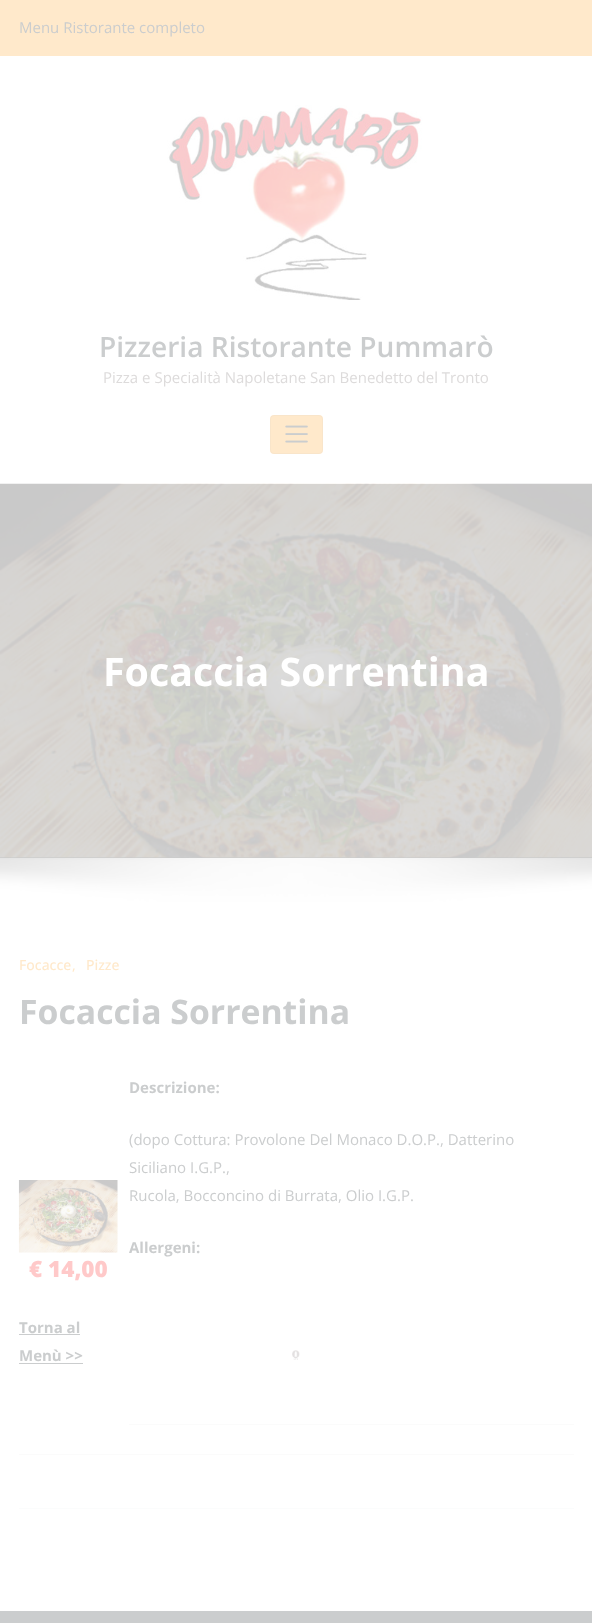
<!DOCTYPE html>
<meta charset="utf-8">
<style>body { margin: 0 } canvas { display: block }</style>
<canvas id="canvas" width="592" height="1623"></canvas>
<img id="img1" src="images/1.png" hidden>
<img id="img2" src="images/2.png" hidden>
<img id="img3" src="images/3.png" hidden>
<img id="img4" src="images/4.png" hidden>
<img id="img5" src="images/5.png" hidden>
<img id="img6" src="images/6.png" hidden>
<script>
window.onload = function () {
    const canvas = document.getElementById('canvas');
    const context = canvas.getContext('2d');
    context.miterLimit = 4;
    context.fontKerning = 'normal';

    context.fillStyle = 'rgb(255, 255, 255)';
    context.fillRect(0, 0, 592, 1623);
    context.fillStyle = 'rgb(255, 233, 203)';
    context.fillRect(0, 0, 592, 56);
    context.drawImage(document.getElementById('img1'), 167, 105, 256, 195);
    context.beginPath();
    context.roundRect(270, 415, 53, 39, 4);
    context.fill();
    context.beginPath();
    context.roundRect(270.5, 415.5, 52, 38, 3.5);
    context.strokeStyle = 'rgba(201, 201, 201, 0.1)';
    context.stroke();
    context.drawImage(document.getElementById('img2'), 285, 425, 23, 18);
    context.fillStyle = 'rgb(203, 204, 205)';
    context.fillRect(0, 857, 592, 1);
    context.drawImage(document.getElementById('img3'), 0, 483, 592, 375);
    context.drawImage(document.getElementById('img4'), 0, 857, 592, 45);
    context.fillStyle = 'rgb(251, 252, 252)';
    context.fillRect(19, 1508, 555, 1);
    context.fillStyle = 'rgb(251, 251, 251)';
    context.fillRect(19, 1454, 555, 1);
    context.fillRect(129, 1424, 445, 1);
    context.drawImage(document.getElementById('img5'), 292, 1350, 8, 10);
    context.drawImage(document.getElementById('img6'), 18, 1180, 100, 73);
    context.fillStyle = 'rgb(203, 205, 206)';
    context.fillRect(19, 1334, 61, 1);
    context.fillRect(19, 1363, 64, 1);
    context.fillRect(0, 1611, 592, 12);
    context.font = '15px Open Sans';
    context.fillText('Menu Ristorante completo', 19, 33);
    context.font = '600 28.1px Open Sans';
    context.fillText('Pizzeria Ristorante Pummarò', 99, 357);
    context.font = '15px Open Sans';
    context.fillStyle = 'rgb(221, 219, 219)';
    context.fillText('Pizza e Specialità Napoletane San Benedetto del Tronto', 103, 383);
    context.font = 'bold 39.4px Open Sans';
    context.fillStyle = 'rgb(255, 255, 255)';
    context.fillText('Focaccia Sorrentina', 103, 686);
    context.font = '500 14px Open Sans';
    context.fillStyle = 'rgb(255, 233, 203)';
    context.fillText('Focacce', 19, 970);
    context.fillText(',', 72, 970);
    context.fillText('Pizze', 86, 970);
    context.font = 'bold 33.75px Open Sans';
    context.fillStyle = 'rgb(203, 205, 206)';
    context.fillText('Focaccia Sorrentina', 19, 1024);
    context.font = 'bold 15px Open Sans';
    context.fillText('Descrizione:', 129, 1093);
    context.font = '15px Open Sans';
    context.fillText('(dopo Cottura: Provolone Del Monaco D.O.P., Datterino', 129, 1145);
    context.fillText('Siciliano I.G.P.,', 129, 1173);
    context.fillText('Rucola, Bocconcino di Burrata, Olio I.G.P.', 129, 1201);
    context.font = 'bold 15px Open Sans';
    context.fillText('Allergeni:', 129, 1253);
    context.font = '800 22.5px Open Sans';
    context.fillStyle = 'rgb(255, 201, 201)';
    context.fillText('€ 14,00', 29, 1277);
    context.font = 'bold 15px Open Sans';
    context.fillStyle = 'rgb(203, 205, 206)';
    context.fillText('Torna al', 19, 1333);
    context.fillText('Menù >>', 19, 1361);
};
</script>
